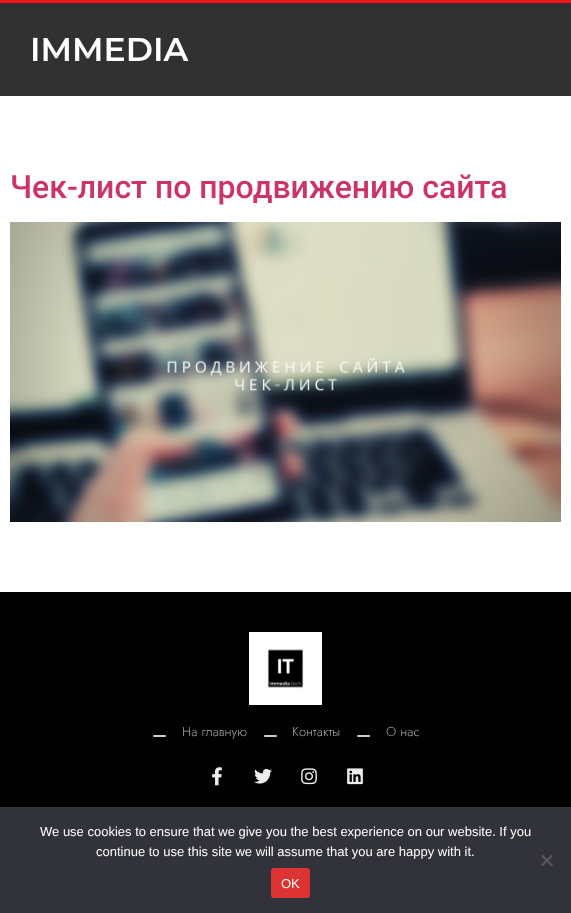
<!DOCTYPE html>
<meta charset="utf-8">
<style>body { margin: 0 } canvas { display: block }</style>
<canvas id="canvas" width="571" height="913"></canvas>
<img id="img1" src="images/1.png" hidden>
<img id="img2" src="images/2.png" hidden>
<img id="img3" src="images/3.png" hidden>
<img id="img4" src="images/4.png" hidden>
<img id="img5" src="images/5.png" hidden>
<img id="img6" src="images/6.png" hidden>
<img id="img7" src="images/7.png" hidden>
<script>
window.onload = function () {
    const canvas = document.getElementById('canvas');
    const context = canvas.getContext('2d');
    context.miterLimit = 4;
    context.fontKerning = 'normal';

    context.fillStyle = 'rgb(255, 255, 255)';
    context.fillRect(0, 0, 571, 913);
    context.fillStyle = 'rgb(246, 18, 28)';
    context.fillRect(0, 0, 571, 3);
    context.fillStyle = 'rgb(50, 49, 49)';
    context.fillRect(0, 3, 571, 93);
    context.drawImage(document.getElementById('img1'), 10, 222, 551, 300);
    context.fillStyle = 'rgb(2, 1, 1)';
    context.fillRect(0, 592, 571, 215);
    context.drawImage(document.getElementById('img2'), 249, 632, 73, 73);
    context.drawImage(document.getElementById('img3'), 153, 735, 13, 2);
    context.drawImage(document.getElementById('img3'), 264, 735, 13, 2);
    context.drawImage(document.getElementById('img3'), 357, 735, 13, 2);
    context.drawImage(document.getElementById('img4'), 212, 767, 10, 19);
    context.drawImage(document.getElementById('img5'), 254, 768, 18, 16);
    context.drawImage(document.getElementById('img6'), 301, 768, 16, 17);
    context.drawImage(document.getElementById('img7'), 347, 768, 16, 17);
    context.fillStyle = 'rgb(50, 50, 58)';
    context.fillRect(0, 807, 571, 106);
    context.fillStyle = 'rgb(89, 89, 93)';
    context.beginPath();
    context.moveTo(551.5, 854.5);
    context.lineTo(553, 856);
    context.lineTo(542.5, 866.5);
    context.lineTo(541, 865);
    context.closePath();
    context.fill();
    context.beginPath();
    context.moveTo(541, 856);
    context.lineTo(542.5, 854.5);
    context.lineTo(553, 865);
    context.lineTo(551.5, 866.5);
    context.closePath();
    context.fill();
    context.fillStyle = 'rgb(221, 51, 51)';
    context.beginPath();
    context.roundRect(271, 868, 39, 30, 3);
    context.fill();
    context.font = '600 33px Montserrat';
    context.fillStyle = 'rgb(255, 255, 255)';
    context.fillText('IMMEDIA', 30, 61);
    context.font = '500 32px Roboto';
    context.fillStyle = 'rgb(204, 51, 102)';
    context.fillText('Чек-лист по продвижению сайта', 10, 198);
    context.font = '300 13px Jost';
    context.fillStyle = 'rgb(169, 169, 169)';
    context.fillText('На главную', 182, 736);
    context.fillText('Контакты', 292, 736);
    context.fillText('О нас', 386, 736);
    context.font = '13px Liberation Sans';
    context.fillStyle = 'rgb(255, 255, 255)';
    context.fillText('We use cookies to ensure that we give you the best experience on our website. If you', 40, 836);
    context.fillText('continue to use this site we will assume that you are happy with it.', 96, 856);
    context.fillText('OK', 281, 888);
};
</script>
